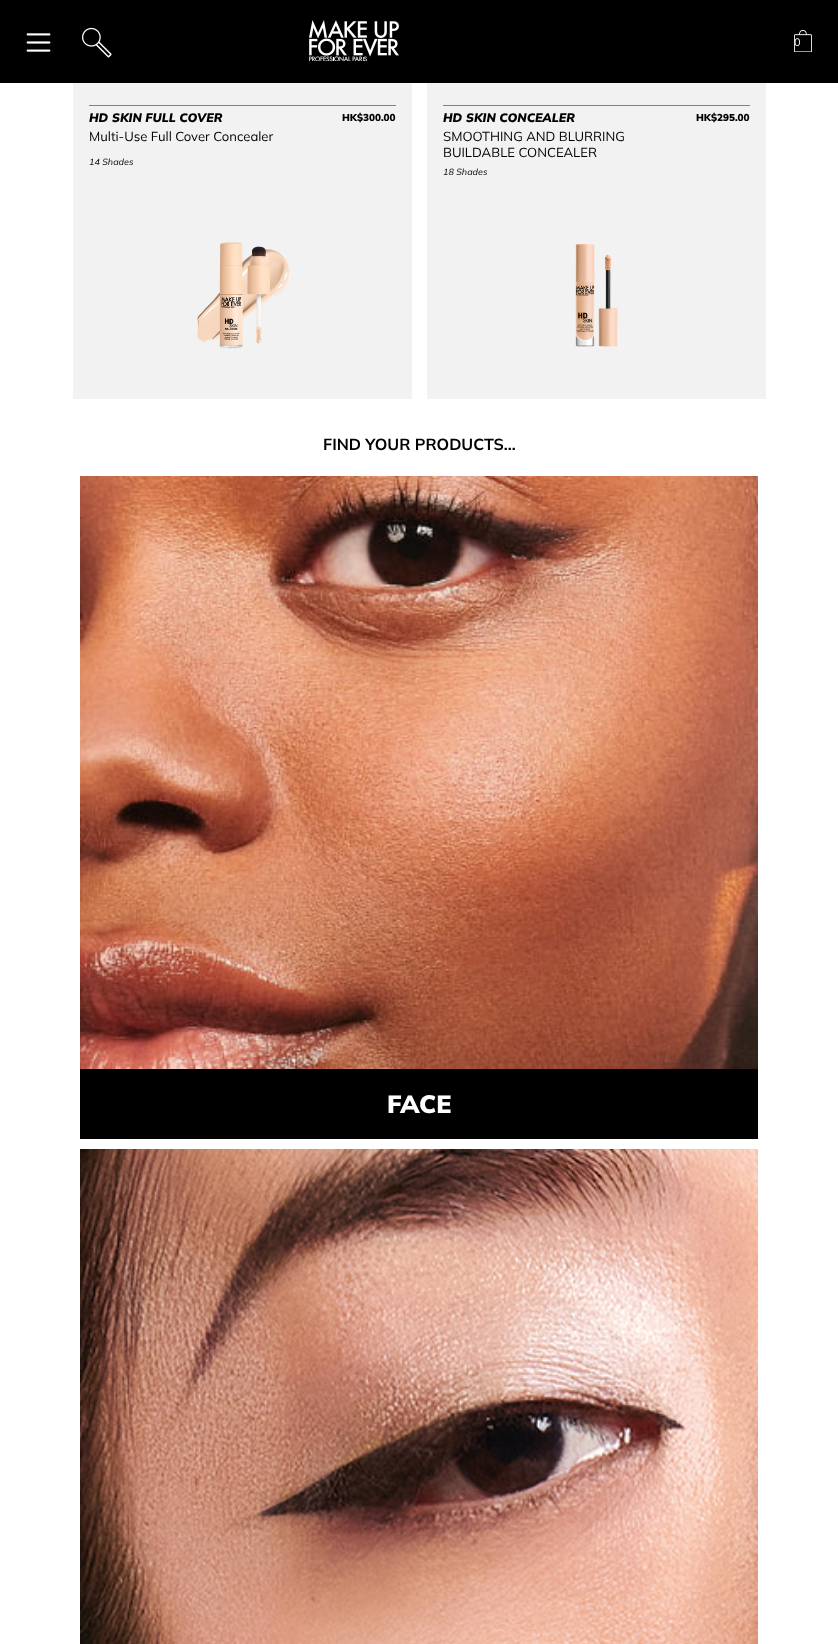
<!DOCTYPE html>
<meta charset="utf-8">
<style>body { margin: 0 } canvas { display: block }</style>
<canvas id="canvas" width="838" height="1644"></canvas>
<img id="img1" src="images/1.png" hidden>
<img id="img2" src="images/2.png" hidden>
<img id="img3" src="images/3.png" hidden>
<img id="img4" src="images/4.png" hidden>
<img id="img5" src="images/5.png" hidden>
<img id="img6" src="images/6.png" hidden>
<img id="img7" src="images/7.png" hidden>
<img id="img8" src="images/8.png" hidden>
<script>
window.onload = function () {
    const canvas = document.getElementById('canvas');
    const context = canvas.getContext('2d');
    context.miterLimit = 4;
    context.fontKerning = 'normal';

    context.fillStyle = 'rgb(255, 255, 255)';
    context.fillRect(0, 0, 838, 1644);
    context.fillStyle = 'rgb(0, 0, 0)';
    context.fillRect(0, 0, 838, 83);
    context.drawImage(document.getElementById('img1'), 26, 33, 25, 19);
    context.drawImage(document.getElementById('img2'), 82, 27, 30, 31);
    context.drawImage(document.getElementById('img3'), 309, 20, 90, 41);
    context.drawImage(document.getElementById('img4'), 794, 30, 18, 22);
    context.fillStyle = 'rgb(242, 242, 242)';
    context.fillRect(73, 83, 339, 316);
    context.fillStyle = 'rgb(130, 130, 130)';
    context.fillRect(89, 105, 307, 1);
    context.drawImage(document.getElementById('img5'), 197, 242, 93, 107);
    context.fillStyle = 'rgb(242, 242, 242)';
    context.fillRect(427, 83, 339, 316);
    context.fillStyle = 'rgb(130, 130, 130)';
    context.fillRect(443, 105, 307, 1);
    context.drawImage(document.getElementById('img6'), 575, 244, 43, 103);
    context.drawImage(document.getElementById('img7'), 80, 476, 678, 593);
    context.fillStyle = 'rgb(0, 0, 0)';
    context.fillRect(80, 1069, 678, 70);
    context.drawImage(document.getElementById('img8'), 80, 1149, 678, 495);
    context.font = '11px Mulish';
    context.fillStyle = 'rgb(255, 255, 255)';
    context.fillText('0', 794, 46);
    context.font = 'italic 900 12.25px Mulish';
    context.fillStyle = 'rgb(0, 0, 0)';
    context.fillText('HD SKIN FULL COVER', 89, 122);
    context.font = '13.1px Mulish';
    context.fillText('Multi-Use Full Cover Concealer', 89, 141);
    context.font = '900 10px Mulish';
    context.fillText('HK$300.00', 342, 121);
    context.font = 'italic 500 9px Mulish';
    context.fillStyle = 'rgb(23, 23, 23)';
    context.fillText('14 Shades', 89, 165);
    context.font = 'italic 900 12.25px Mulish';
    context.fillStyle = 'rgb(0, 0, 0)';
    context.fillText('HD SKIN CONCEALER', 443, 122);
    context.font = '13.1px Mulish';
    context.fillText('SMOOTHING AND BLURRING', 443, 141);
    context.fillText('BUILDABLE CONCEALER', 443, 157);
    context.font = '900 10px Mulish';
    context.fillText('HK$295.00', 696, 121);
    context.font = 'italic 500 9px Mulish';
    context.fillStyle = 'rgb(23, 23, 23)';
    context.fillText('18 Shades', 443, 175);
    context.font = 'bold 16px Mulish';
    context.fillStyle = 'rgb(0, 0, 0)';
    context.fillText('FIND YOUR PRODUCTS...', 323, 450);
    context.font = '900 25px Mulish';
    context.fillStyle = 'rgb(255, 255, 255)';
    context.fillText('FACE', 387, 1113);
};
</script>
